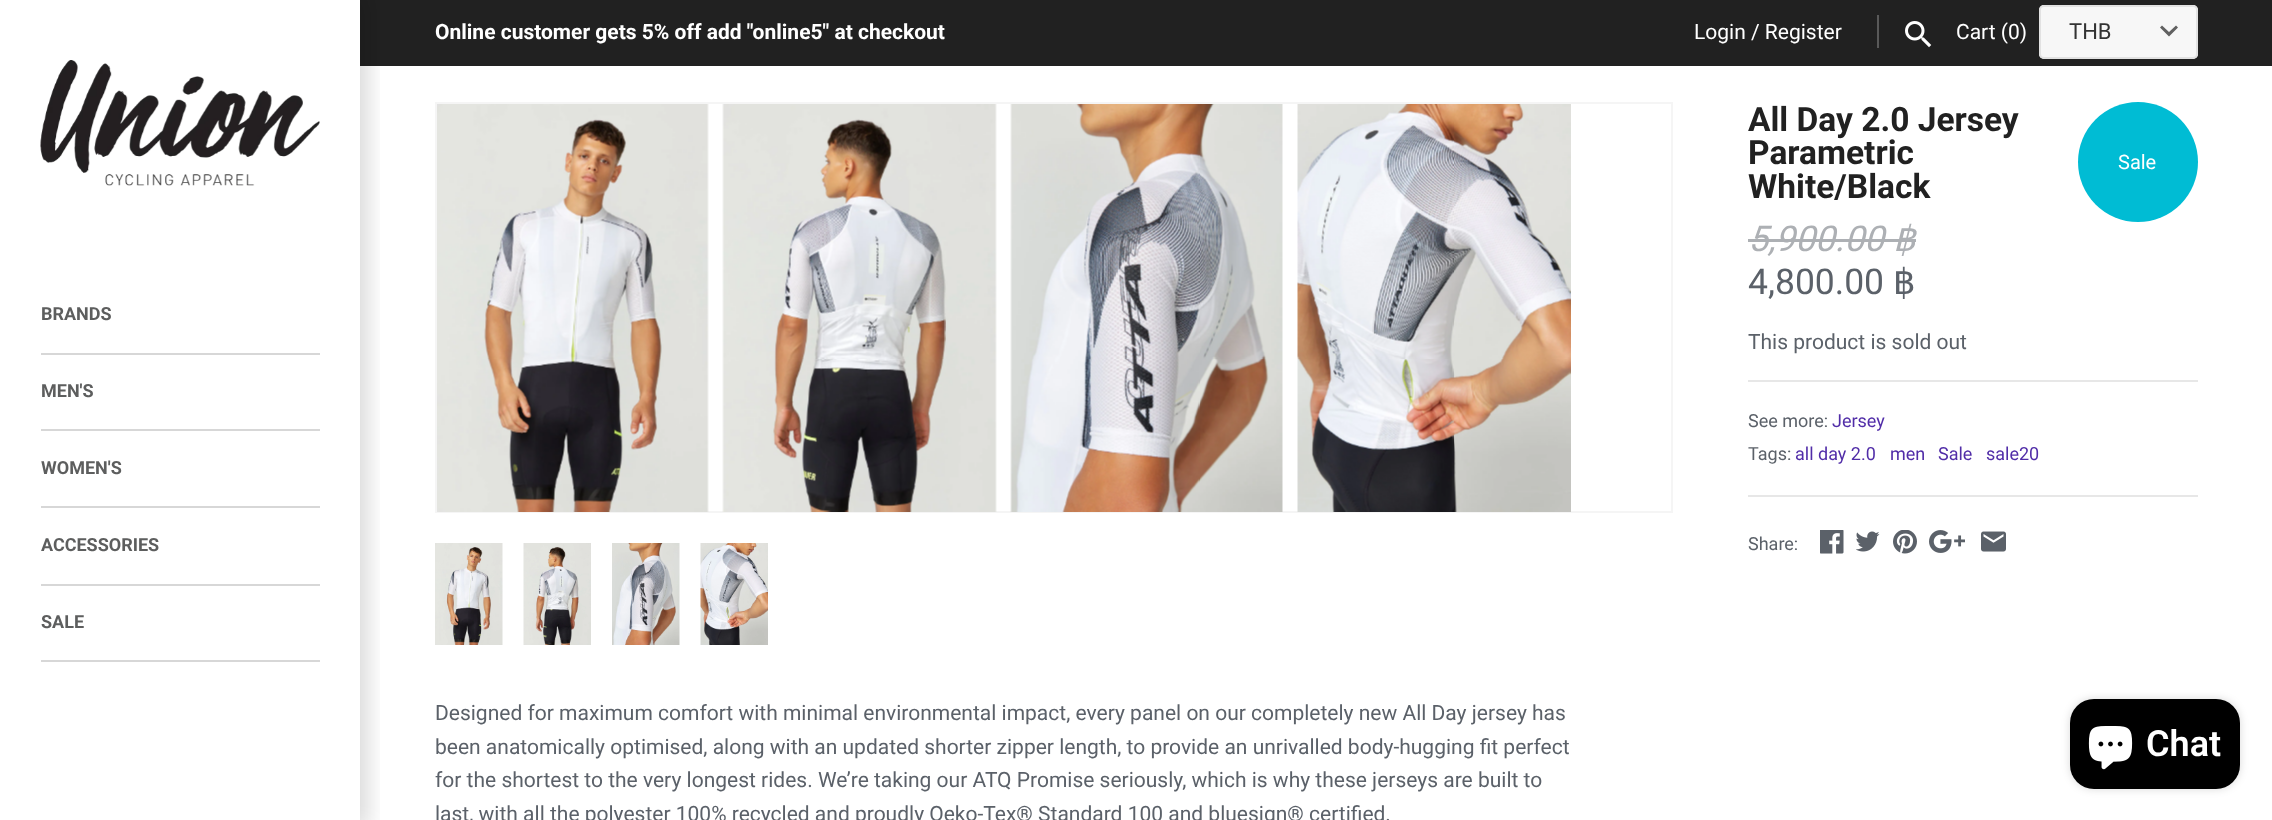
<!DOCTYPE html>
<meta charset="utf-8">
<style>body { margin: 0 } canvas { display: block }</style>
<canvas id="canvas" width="2272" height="820"></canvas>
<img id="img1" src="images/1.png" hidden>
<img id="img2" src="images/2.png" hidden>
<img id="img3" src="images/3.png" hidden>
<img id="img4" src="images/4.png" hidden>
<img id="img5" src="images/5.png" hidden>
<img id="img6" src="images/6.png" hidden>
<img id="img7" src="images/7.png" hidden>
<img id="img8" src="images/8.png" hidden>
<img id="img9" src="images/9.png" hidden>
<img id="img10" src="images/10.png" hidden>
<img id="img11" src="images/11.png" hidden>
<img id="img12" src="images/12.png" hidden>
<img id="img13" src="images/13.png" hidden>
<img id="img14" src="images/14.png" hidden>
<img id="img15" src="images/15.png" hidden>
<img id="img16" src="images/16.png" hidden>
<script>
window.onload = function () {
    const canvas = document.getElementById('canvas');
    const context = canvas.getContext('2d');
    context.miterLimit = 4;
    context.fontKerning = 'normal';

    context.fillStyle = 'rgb(255, 255, 255)';
    context.fillRect(0, 0, 2272, 820);
    context.fillStyle = 'rgb(33, 33, 33)';
    context.fillRect(360, 0, 1912, 66);
    context.fillStyle = 'rgb(89, 89, 89)';
    context.fillRect(1877, 15, 2, 33);
    context.drawImage(document.getElementById('img1'), 1905, 21, 27, 27);
    context.fillStyle = 'rgb(247, 247, 247)';
    context.beginPath();
    context.roundRect(2039, 5, 159, 54, 5);
    context.fill();
    context.fillStyle = 'rgb(97, 97, 97)';
    context.beginPath();
    context.moveTo(2162, 25.5);
    context.lineTo(2169, 32);
    context.lineTo(2176, 25.5);
    context.lineTo(2178, 27.5);
    context.lineTo(2169, 36.5);
    context.lineTo(2160, 27.5);
    context.closePath();
    context.fill();
    context.beginPath();
    context.roundRect(2040, 6, 157, 52, 4);
    context.strokeStyle = 'rgb(226, 226, 226)';
    context.lineWidth = 2;
    context.stroke();
    context.save();
    context.beginPath();
    context.rect(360, 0, 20, 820);
    context.clip();
    context.fillStyle = 'rgba(0, 0, 0, 0.15)';
    context.filter = 'blur(11px)';
    context.beginPath();
    context.rect(-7, -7, 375, 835);
    context.fill();
    context.filter = 'none';
    context.restore();
    context.drawImage(document.getElementById('img2'), 40, 60, 280, 126);
    context.fillStyle = 'rgb(215, 215, 215)';
    context.fillRect(41, 353, 279, 2);
    context.fillRect(41, 429, 279, 2);
    context.fillRect(41, 506, 279, 2);
    context.fillRect(41, 584, 279, 2);
    context.fillRect(41, 660, 279, 2);
    context.strokeStyle = 'rgb(245, 245, 245)';
    context.strokeRect(436, 103, 1236, 409);
    context.drawImage(document.getElementById('img3'), 437, 104, 272, 408);
    context.drawImage(document.getElementById('img4'), 722, 104, 275, 408);
    context.drawImage(document.getElementById('img5'), 1010, 104, 273, 408);
    context.drawImage(document.getElementById('img6'), 1297, 104, 274, 408);
    context.drawImage(document.getElementById('img7'), 435, 543, 68, 102);
    context.drawImage(document.getElementById('img8'), 523, 543, 68, 102);
    context.drawImage(document.getElementById('img9'), 612, 543, 68, 102);
    context.drawImage(document.getElementById('img10'), 700, 543, 68, 102);
    context.fillStyle = 'rgb(0, 188, 212)';
    context.beginPath();
    context.arc(2138, 162, 60, 0, 2 * Math.PI);
    context.fill();
    context.fillStyle = 'rgb(173, 176, 180)';
    context.fillRect(1748, 239, 168, 3);
    context.fillStyle = 'rgb(231, 231, 231)';
    context.fillRect(1748, 380, 450, 2);
    context.fillRect(1748, 495, 450, 2);
    context.drawImage(document.getElementById('img11'), 1820, 530, 24, 24);
    context.drawImage(document.getElementById('img12'), 1856, 531, 24, 21);
    context.drawImage(document.getElementById('img13'), 1893, 530, 24, 24);
    context.drawImage(document.getElementById('img14'), 1929, 530, 36, 23);
    context.drawImage(document.getElementById('img15'), 1981, 531, 25, 21);
    context.fillStyle = 'rgba(0, 0, 0, 0.15)';
    context.filter = 'blur(4px)';
    context.beginPath();
    context.roundRect(2070, 699, 170, 90, 24);
    context.fill();
    context.filter = 'none';
    context.fillStyle = 'rgb(0, 0, 0)';
    context.beginPath();
    context.roundRect(2070, 699, 170, 90, 24);
    context.fill();
    context.drawImage(document.getElementById('img16'), 2088, 726, 45, 44);
    context.font = 'bold 21px Roboto';
    context.fillStyle = 'rgb(255, 255, 255)';
    context.fillText('Online customer gets 5% off add "online5" at checkout', 435, 39);
    context.font = '21px Roboto';
    context.fillText('Login / Register', 1694, 39);
    context.fillText('Cart (0)', 1956, 39);
    context.font = '22px Roboto';
    context.fillStyle = 'rgb(51, 51, 51)';
    context.fillText('THB', 2069, 39);
    context.font = 'bold 18px Roboto';
    context.fillStyle = 'rgb(93, 94, 94)';
    context.fillText('BRANDS', 41, 320);
    context.fillText('MEN\'S', 41, 397);
    context.fillText('WOMEN\'S', 41, 474);
    context.fillText('ACCESSORIES', 41, 551);
    context.fillText('SALE', 41, 628);
    context.font = 'bold 33.5px Roboto';
    context.fillStyle = 'rgb(33, 33, 33)';
    context.fillText('All Day 2.0 Jersey', 1748, 131);
    context.fillText('Parametric', 1748, 164);
    context.fillText('White/Black', 1748, 198);
    context.font = '20px Roboto';
    context.fillStyle = 'rgb(255, 255, 255)';
    context.fillText('Sale', 2118, 169);
    context.font = 'italic 35.5px Roboto';
    context.fillStyle = 'rgb(173, 176, 180)';
    context.fillText('5,900.00', 1748, 251);
    context.font = 'italic 35.5px DejaVu Sans';
    context.fillText('฿', 1893, 251);
    context.font = '35.5px Roboto';
    context.fillStyle = 'rgb(91, 97, 105)';
    context.fillText('4,800.00', 1748, 294);
    context.font = '35.5px DejaVu Sans';
    context.fillText('฿', 1893, 294);
    context.font = '21px Roboto';
    context.fillText('This product is sold out', 1748, 349);
    context.font = '18px Roboto';
    context.fillText('See more:', 1748, 427);
    context.fillStyle = 'rgb(81, 45, 168)';
    context.fillText('Jersey', 1832, 427);
    context.fillStyle = 'rgb(91, 97, 105)';
    context.fillText('Tags:', 1748, 460);
    context.fillStyle = 'rgb(81, 45, 168)';
    context.fillText('all day 2.0', 1795, 460);
    context.fillText('men', 1890, 460);
    context.fillText('Sale', 1938, 460);
    context.fillText('sale20', 1986, 460);
    context.fillStyle = 'rgb(91, 97, 105)';
    context.fillText('Share:', 1748, 550);
    context.font = '21px Roboto';
    context.fillText('Designed for maximum comfort with minimal environmental impact, every panel on our completely new All Day jersey has', 435, 720);
    context.fillText('been anatomically optimised, along with an updated shorter zipper length, to provide an unrivalled body-hugging fit perfect', 435, 754);
    context.fillText('for the shortest to the very longest rides. We’re taking our ATQ Promise seriously, which is why these jerseys are built to', 435, 787);
    context.fillText('last, with all the polyester 100% recycled and proudly Oeko-Tex® Standard 100 and bluesign® certified.', 435, 821);
    context.font = '600 36px Roboto';
    context.fillStyle = 'rgb(255, 255, 255)';
    context.fillText('Chat', 2146, 756);
};
</script>
